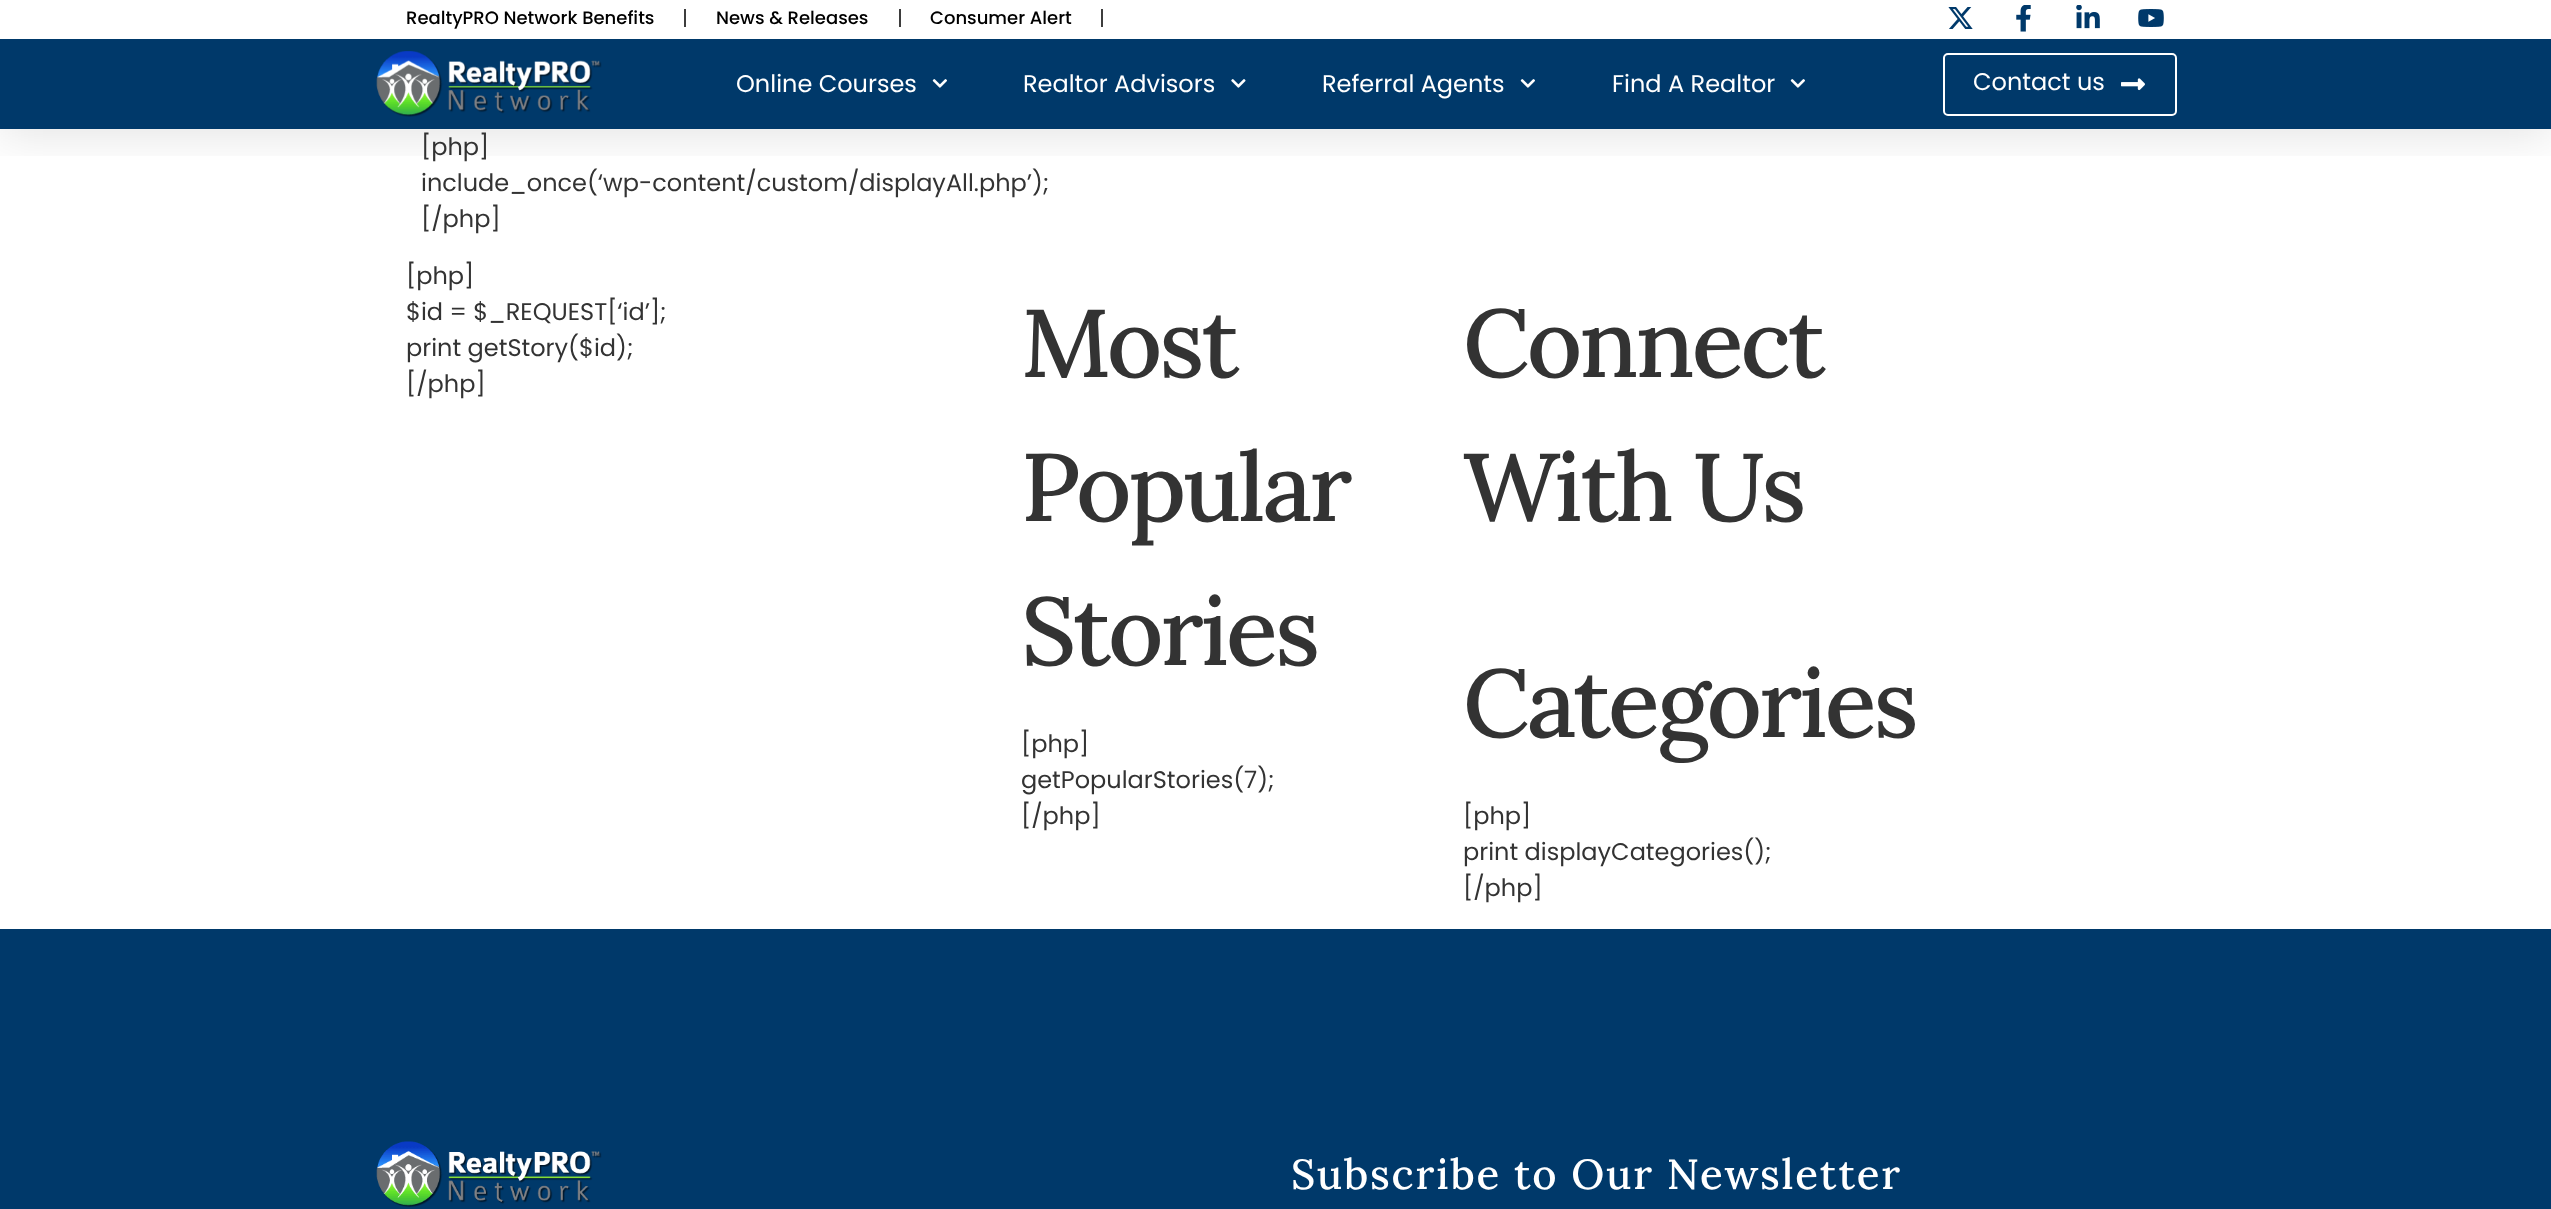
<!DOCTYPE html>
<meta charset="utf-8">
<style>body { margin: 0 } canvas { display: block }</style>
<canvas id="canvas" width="2551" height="1209"></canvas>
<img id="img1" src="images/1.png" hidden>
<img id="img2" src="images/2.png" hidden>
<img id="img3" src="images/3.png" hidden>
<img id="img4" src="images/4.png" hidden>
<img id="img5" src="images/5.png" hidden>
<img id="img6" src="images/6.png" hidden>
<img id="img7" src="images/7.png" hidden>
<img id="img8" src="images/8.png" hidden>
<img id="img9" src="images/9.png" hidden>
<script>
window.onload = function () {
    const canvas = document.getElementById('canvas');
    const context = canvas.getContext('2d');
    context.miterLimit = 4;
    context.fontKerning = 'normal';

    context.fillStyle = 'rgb(255, 255, 255)';
    context.fillRect(0, 0, 2551, 1209);
    context.save();
    context.beginPath();
    context.rect(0, 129, 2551, 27);
    context.clip();
    context.fillStyle = 'rgba(0, 0, 0, 0.1)';
    context.filter = 'blur(22.5px)';
    context.beginPath();
    context.rect(0, 8, 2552, 129);
    context.fill();
    context.filter = 'none';
    context.restore();
    context.fillStyle = 'rgb(61, 61, 61)';
    context.fillRect(684, 9, 2, 18);
    context.fillRect(899, 9, 2, 18);
    context.fillRect(1101, 9, 2, 18);
    context.drawImage(document.getElementById('img1'), 1948, 7, 25, 22);
    context.drawImage(document.getElementById('img2'), 2016, 5, 15, 27);
    context.drawImage(document.getElementById('img3'), 2076, 5, 24, 24);
    context.drawImage(document.getElementById('img4'), 2138, 9, 26, 18);
    context.fillStyle = 'rgb(0, 57, 106)';
    context.fillRect(0, 39, 2551, 90);
    context.drawImage(document.getElementById('img5'), 376, 51, 226, 66);
    context.drawImage(document.getElementById('img6'), 932, 79, 15, 9);
    context.drawImage(document.getElementById('img7'), 1231, 79, 15, 9);
    context.drawImage(document.getElementById('img6'), 1520, 79, 15, 9);
    context.drawImage(document.getElementById('img6'), 1790, 79, 15, 9);
    context.beginPath();
    context.roundRect(1944, 54, 232, 61, 4);
    context.strokeStyle = 'rgb(255, 255, 255)';
    context.lineWidth = 2;
    context.stroke();
    context.drawImage(document.getElementById('img8'), 2121, 78, 24, 13);
    context.fillRect(0, 929, 2551, 280);
    context.drawImage(document.getElementById('img9'), 376, 1141, 226, 66);
    context.font = '500 18px Poppins';
    context.fillStyle = 'rgb(0, 0, 0)';
    context.fillText('RealtyPRO Network Benefits', 406, 24);
    context.fillText('News & Releases', 716, 24);
    context.fillText('Consumer Alert', 930, 24);
    context.font = '24px Poppins';
    context.fillStyle = 'rgb(255, 255, 255)';
    context.fillText('Online Courses', 736, 92);
    context.fillText('Realtor Advisors', 1023, 92);
    context.fillText('Referral Agents', 1322, 92);
    context.fillText('Find A Realtor', 1612, 92);
    context.fillText('Contact us', 1973, 90);
    context.fillStyle = 'rgb(51, 51, 51)';
    context.fillText('[php]', 421, 155);
    context.fillText('include_once(‘wp-content/custom/displayAll.php’);', 421, 191);
    context.fillText('[/php]', 421, 227);
    context.fillText('[php]', 406, 284);
    context.fillText('$id = $_REQUEST[‘id’];', 406, 320);
    context.fillText('print getStory($id);', 406, 356);
    context.fillText('[/php]', 406, 392);
    context.letterSpacing = '-3px';
    context.font = '500 96px Lora';
    context.fillText('Most', 1021, 377);
    context.fillText('Popular', 1021, 521);
    context.fillText('Stories', 1021, 665);
    context.letterSpacing = '0px';
    context.font = '24px Poppins';
    context.fillText('[php]', 1021, 752);
    context.fillText('getPopularStories(7);', 1021, 788);
    context.fillText('[/php]', 1021, 824);
    context.letterSpacing = '-3px';
    context.font = '500 96px Lora';
    context.fillText('Connect', 1463, 377);
    context.fillText('With Us', 1463, 521);
    context.fillText('Categories', 1463, 737);
    context.letterSpacing = '0px';
    context.font = '24px Poppins';
    context.fillText('[php]', 1463, 824);
    context.fillText('print displayCategories();', 1463, 860);
    context.fillText('[/php]', 1463, 896);
    context.letterSpacing = '1.8px';
    context.font = '500 42px Lora';
    context.fillStyle = 'rgb(255, 255, 255)';
    context.fillText('Subscribe to Our Newsletter', 1291, 1189);
};
</script>
